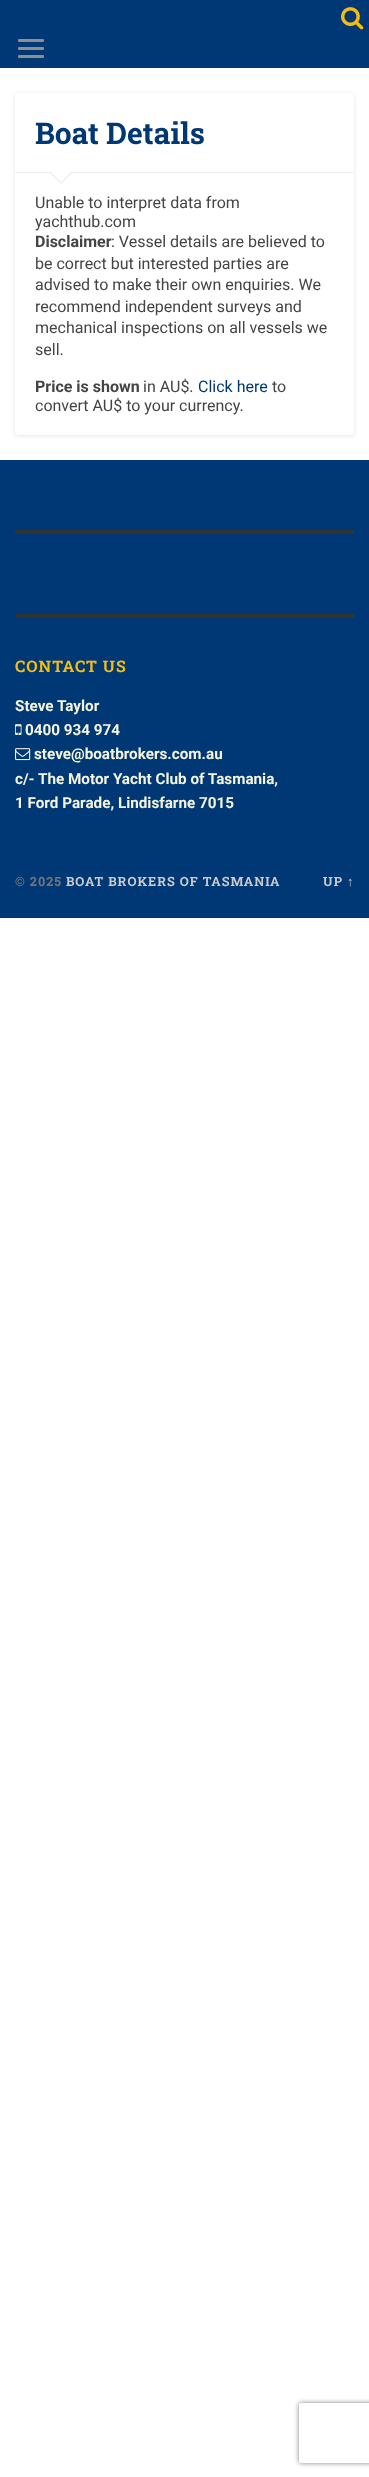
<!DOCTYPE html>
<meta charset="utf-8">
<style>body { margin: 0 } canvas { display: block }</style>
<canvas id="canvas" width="369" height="2477"></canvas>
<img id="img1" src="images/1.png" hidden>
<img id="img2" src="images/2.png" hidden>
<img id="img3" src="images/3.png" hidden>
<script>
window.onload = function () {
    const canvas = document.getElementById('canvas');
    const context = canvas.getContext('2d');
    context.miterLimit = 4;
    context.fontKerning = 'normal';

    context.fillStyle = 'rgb(255, 255, 255)';
    context.fillRect(0, 0, 369, 2477);
    context.fillStyle = 'rgb(0, 56, 117)';
    context.fillRect(0, 0, 369, 68);
    context.drawImage(document.getElementById('img1'), 341, 7, 23, 23);
    context.fillStyle = 'rgb(142, 142, 142)';
    context.beginPath();
    context.roundRect(18, 39, 26, 3, 1);
    context.fill();
    context.beginPath();
    context.roundRect(18, 47, 26, 3, 1);
    context.fill();
    context.beginPath();
    context.roundRect(18, 55, 26, 3, 1);
    context.fill();
    context.fillStyle = 'rgba(0, 0, 0, 0.1)';
    context.filter = 'blur(2px)';
    context.beginPath();
    context.roundRect(15, 94, 339, 342, 3);
    context.fill();
    context.filter = 'none';
    context.fillStyle = 'rgb(255, 255, 255)';
    context.beginPath();
    context.roundRect(15, 93, 339, 342, 3);
    context.fill();
    context.fillStyle = 'rgb(238, 238, 238)';
    context.fillRect(15, 172, 339, 1);
    context.beginPath();
    context.moveTo(49, 172);
    context.lineTo(73, 172);
    context.lineTo(61, 184);
    context.closePath();
    context.fill();
    context.fillStyle = 'rgb(255, 255, 255)';
    context.beginPath();
    context.moveTo(50, 171);
    context.lineTo(72, 171);
    context.lineTo(61, 182);
    context.closePath();
    context.fill();
    context.fillStyle = 'rgb(0, 56, 117)';
    context.fillRect(0, 460, 369, 458);
    context.fillStyle = 'rgb(51, 51, 51)';
    context.fillRect(15, 530, 339, 4);
    context.fillRect(15, 614, 339, 4);
    context.drawImage(document.getElementById('img2'), 15, 724, 7, 11);
    context.drawImage(document.getElementById('img3'), 15, 748, 16, 13);
    context.save();
    context.beginPath();
    context.moveTo(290, 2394);
    context.lineTo(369, 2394);
    context.lineTo(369, 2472);
    context.lineTo(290, 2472);
    context.closePath();
    context.moveTo(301, 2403);
    context.lineTo(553, 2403);
    context.bezierCurveTo(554, 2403, 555, 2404, 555, 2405);
    context.lineTo(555, 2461);
    context.bezierCurveTo(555, 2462, 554, 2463, 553, 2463);
    context.lineTo(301, 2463);
    context.bezierCurveTo(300, 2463, 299, 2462, 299, 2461);
    context.lineTo(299, 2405);
    context.bezierCurveTo(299, 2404, 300, 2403, 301, 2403);
    context.closePath();
    context.clip('evenodd');
    context.fillStyle = 'rgb(128, 128, 128)';
    context.filter = 'blur(2.5px)';
    context.beginPath();
    context.roundRect(299, 2403, 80, 60, 2);
    context.fill();
    context.filter = 'none';
    context.restore();
    context.font = 'bold 30px Roboto Slab';
    context.fillStyle = 'rgb(0, 56, 117)';
    context.fillText('Boat Details', 35, 144);
    context.font = '16px Roboto';
    context.fillStyle = 'rgb(68, 68, 68)';
    context.fillText('Unable to interpret data from', 35, 208);
    context.fillText('yachthub.com', 35, 227);
    context.font = 'bold 16px Roboto';
    context.fillText('Disclaimer', 35, 247);
    context.font = '16px Roboto';
    context.fillText(': Vessel details are believed to', 111, 247);
    context.fillText('be correct but interested parties are', 35, 269);
    context.fillText('advised to make their own enquiries. We', 35, 290);
    context.fillText('recommend independent surveys and', 35, 312);
    context.fillText('mechanical inspections on all vessels we', 35, 333);
    context.fillText('sell.', 35, 355);
    context.font = 'bold 16px Roboto';
    context.fillText('Price is shown', 35, 392);
    context.font = '16px Roboto';
    context.fillText('in AU$.', 143, 392);
    context.fillStyle = 'rgb(0, 56, 117)';
    context.fillText('Click here', 198, 392);
    context.fillStyle = 'rgb(68, 68, 68)';
    context.fillText('to', 272, 392);
    context.fillText('convert AU$ to your currency.', 35, 411);
    context.letterSpacing = '1px';
    context.font = 'bold 16px Roboto Slab';
    context.fillStyle = 'rgb(247, 188, 18)';
    context.fillText('CONTACT US', 15, 672);
    context.letterSpacing = '0px';
    context.font = 'bold 15.25px Roboto';
    context.fillStyle = 'rgb(245, 245, 220)';
    context.fillText('Steve Taylor', 15, 711);
    context.fillText('0400 934 974', 25, 735);
    context.fillText('steve@boatbrokers.com.au', 34, 759);
    context.fillText('c/- The Motor Yacht Club of Tasmania,', 15, 784);
    context.fillText('1 Ford Parade, Lindisfarne 7015', 15, 808);
    context.letterSpacing = '1px';
    context.font = 'bold 12.75px Roboto Slab';
    context.fillStyle = 'rgb(118, 118, 118)';
    context.fillText('© 2025', 15, 886);
    context.fillStyle = 'rgb(204, 204, 204)';
    context.fillText('BOAT BROKERS OF TASMANIA', 66, 886);
    context.fillText('UP', 323, 886);
    context.font = 'bold 12.75px Liberation Sans';
    context.fillText('↑', 347, 886);
};
</script>
